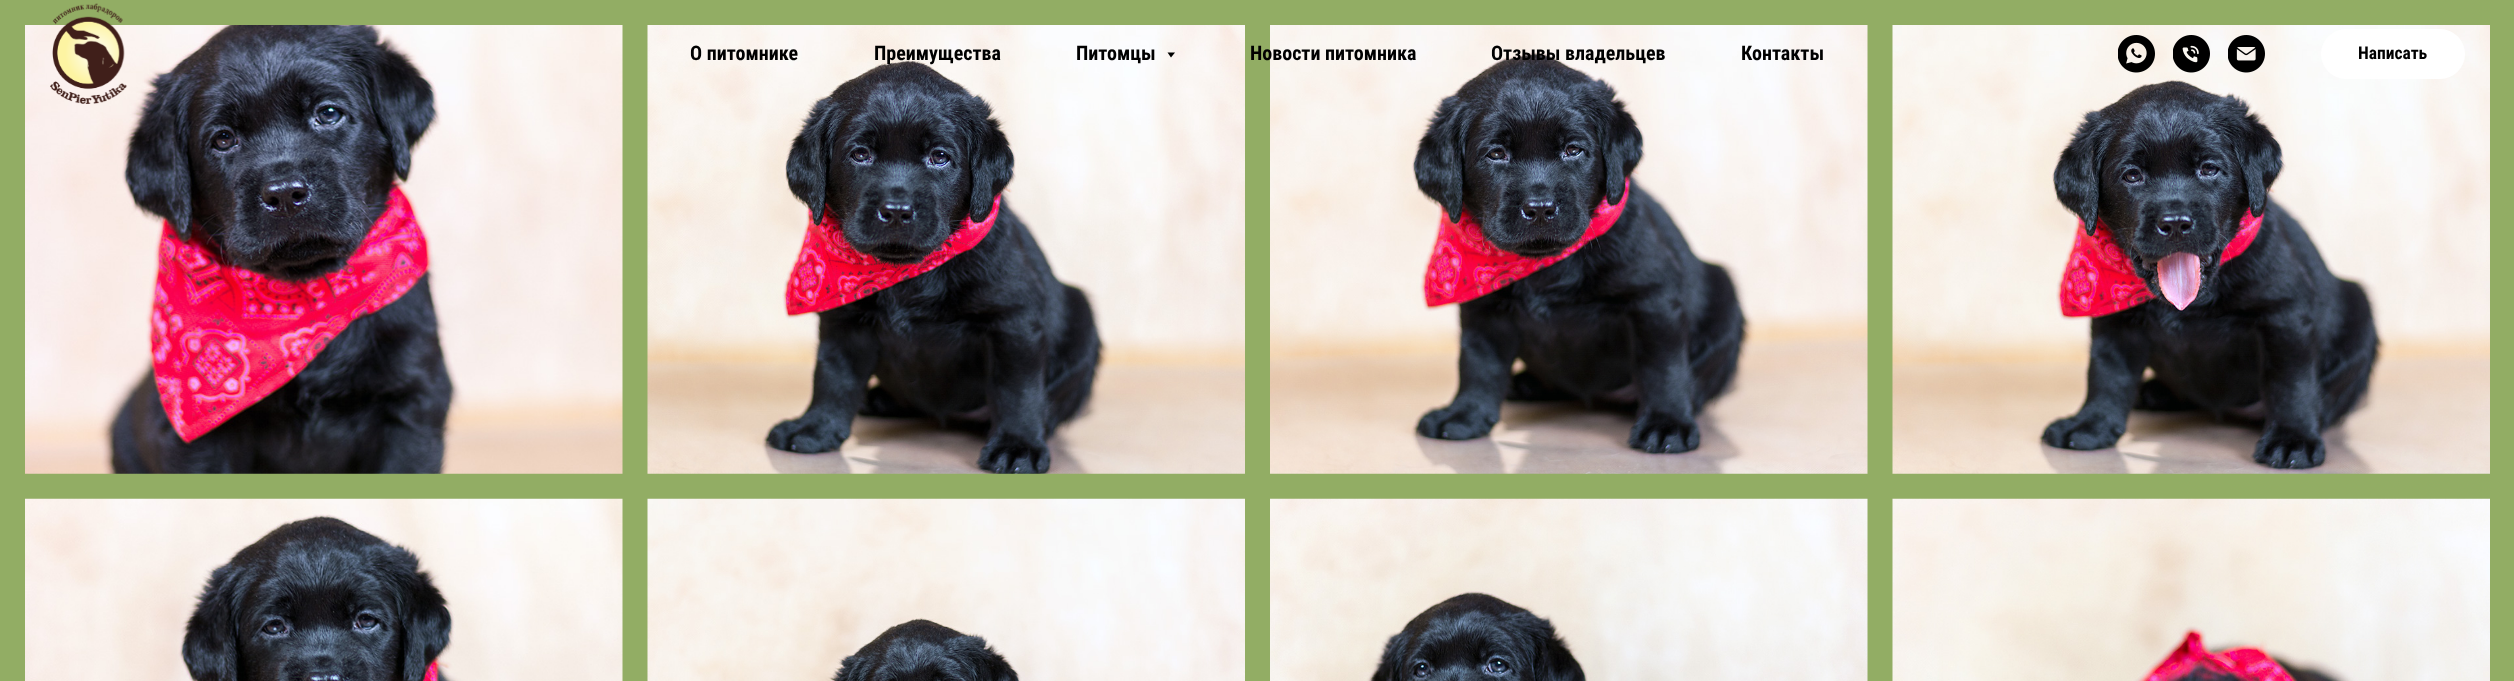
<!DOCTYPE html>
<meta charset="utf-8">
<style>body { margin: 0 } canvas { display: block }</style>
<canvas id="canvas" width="2514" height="681"></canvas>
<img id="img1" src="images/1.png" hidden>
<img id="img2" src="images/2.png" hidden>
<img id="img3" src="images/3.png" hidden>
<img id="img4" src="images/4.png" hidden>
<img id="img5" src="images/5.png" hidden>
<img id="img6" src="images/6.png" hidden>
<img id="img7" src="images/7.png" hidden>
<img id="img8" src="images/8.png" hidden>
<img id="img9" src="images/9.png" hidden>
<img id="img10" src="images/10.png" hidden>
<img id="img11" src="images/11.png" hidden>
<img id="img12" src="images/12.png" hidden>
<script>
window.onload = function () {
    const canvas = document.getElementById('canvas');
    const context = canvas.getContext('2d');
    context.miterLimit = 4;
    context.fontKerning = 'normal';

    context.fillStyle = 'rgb(146, 173, 100)';
    context.fillRect(0, 0, 2514, 681);
    context.drawImage(document.getElementById('img1'), 25, 25, 598, 449);
    context.drawImage(document.getElementById('img2'), 647, 25, 598, 449);
    context.drawImage(document.getElementById('img3'), 1270, 25, 598, 449);
    context.drawImage(document.getElementById('img4'), 1892, 25, 598, 449);
    context.drawImage(document.getElementById('img5'), 25, 498, 598, 183);
    context.drawImage(document.getElementById('img6'), 647, 498, 598, 183);
    context.drawImage(document.getElementById('img7'), 1270, 498, 598, 183);
    context.drawImage(document.getElementById('img8'), 1892, 498, 598, 183);
    context.drawImage(document.getElementById('img9'), 50, 3, 77, 101);
    context.fillStyle = 'rgb(0, 0, 0)';
    context.beginPath();
    context.moveTo(1167.5, 52.5);
    context.lineTo(1175, 52.5);
    context.lineTo(1171, 57.5);
    context.closePath();
    context.fill();
    context.drawImage(document.getElementById('img10'), 2118, 35, 37, 38);
    context.drawImage(document.getElementById('img11'), 2173, 35, 37, 38);
    context.drawImage(document.getElementById('img12'), 2228, 35, 37, 38);
    context.fillStyle = 'rgb(255, 255, 255)';
    context.beginPath();
    context.roundRect(2321, 29, 144, 50, 25);
    context.fill();
    context.font = 'bold 20px Roboto Condensed';
    context.fillStyle = 'rgb(0, 0, 0)';
    context.fillText('О питомнике', 690, 60);
    context.fillText('Преимущества', 874, 60);
    context.fillText('Питомцы', 1076, 60);
    context.fillText('Новости питомника', 1250, 60);
    context.fillText('Отзывы владельцев', 1491, 60);
    context.fillText('Контакты', 1741, 60);
    context.font = 'bold 17.5px Roboto Condensed';
    context.fillText('Написать', 2358, 59);
};
</script>
